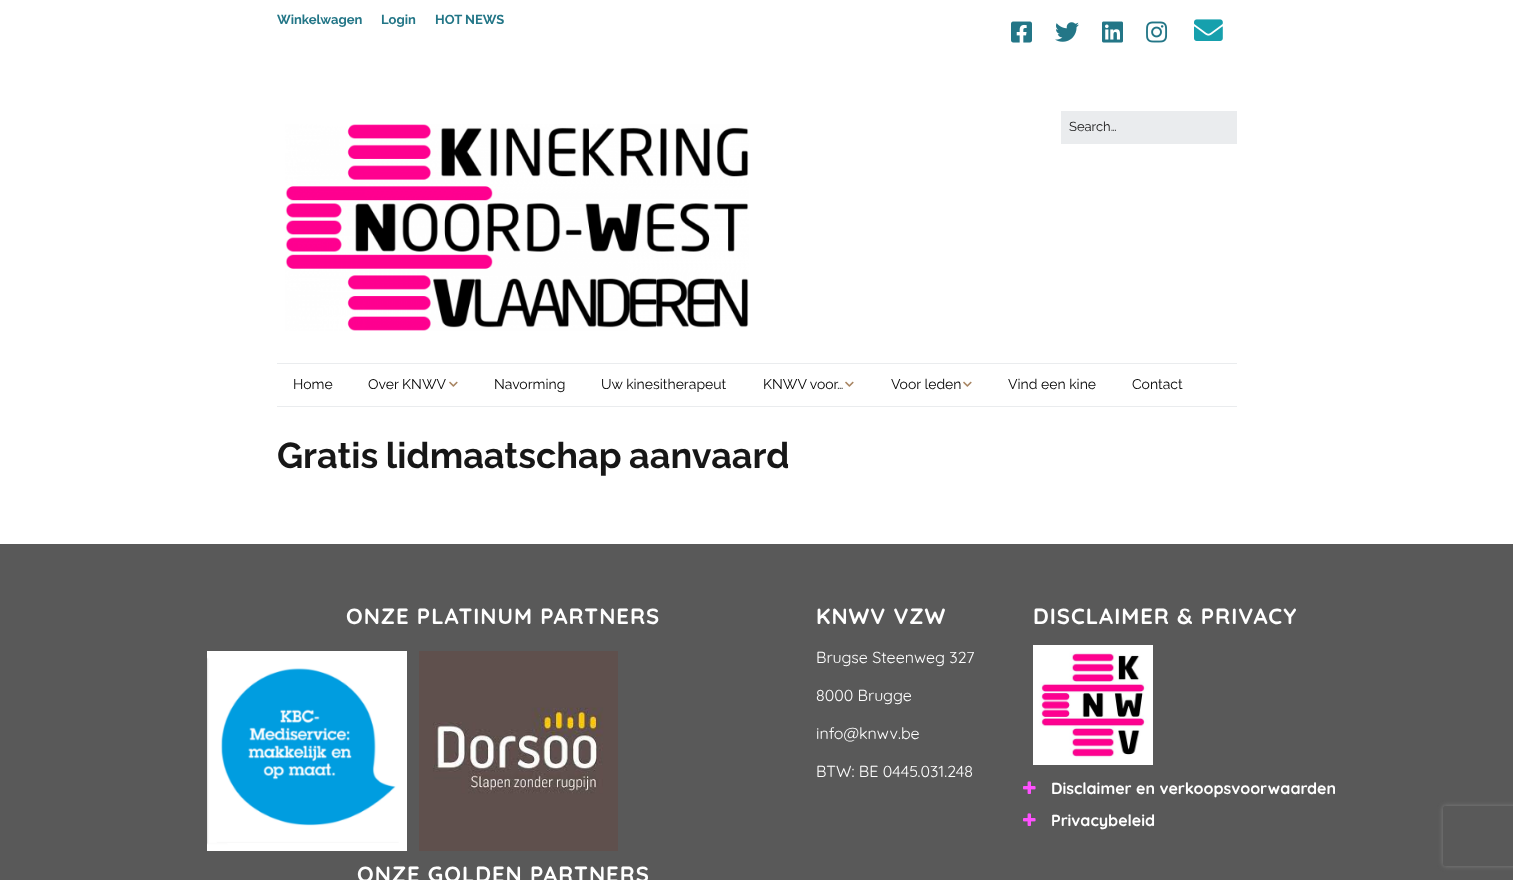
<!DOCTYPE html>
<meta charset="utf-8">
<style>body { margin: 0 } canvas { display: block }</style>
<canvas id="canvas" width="1513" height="880"></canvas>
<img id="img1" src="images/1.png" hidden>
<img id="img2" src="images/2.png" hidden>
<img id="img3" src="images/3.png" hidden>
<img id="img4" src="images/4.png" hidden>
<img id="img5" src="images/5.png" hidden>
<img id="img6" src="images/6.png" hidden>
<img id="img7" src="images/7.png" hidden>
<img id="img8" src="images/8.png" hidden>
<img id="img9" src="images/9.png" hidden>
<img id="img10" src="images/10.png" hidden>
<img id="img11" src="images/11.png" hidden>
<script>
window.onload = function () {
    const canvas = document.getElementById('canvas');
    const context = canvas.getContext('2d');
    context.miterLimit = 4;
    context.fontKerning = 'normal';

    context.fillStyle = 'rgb(255, 255, 255)';
    context.fillRect(0, 0, 1513, 880);
    context.drawImage(document.getElementById('img1'), 1011, 21, 21, 22);
    context.drawImage(document.getElementById('img2'), 1055, 22, 24, 20);
    context.drawImage(document.getElementById('img3'), 1102, 21, 21, 22);
    context.drawImage(document.getElementById('img4'), 1146, 21, 22, 22);
    context.drawImage(document.getElementById('img5'), 1194, 19, 29, 22);
    context.drawImage(document.getElementById('img6'), 285, 124, 464, 207);
    context.fillStyle = 'rgb(234, 236, 238)';
    context.fillRect(1061, 111, 176, 33);
    context.fillRect(277, 363, 960, 1);
    context.fillRect(277, 406, 960, 1);
    context.drawImage(document.getElementById('img7'), 449, 381, 9, 6);
    context.drawImage(document.getElementById('img7'), 845, 381, 9, 6);
    context.drawImage(document.getElementById('img7'), 963, 381, 9, 6);
    context.fillStyle = 'rgb(89, 89, 89)';
    context.fillRect(0, 544, 1513, 336);
    context.drawImage(document.getElementById('img8'), 207, 651, 200, 200);
    context.drawImage(document.getElementById('img9'), 419, 651, 199, 200);
    context.drawImage(document.getElementById('img10'), 1033, 645, 120, 120);
    context.drawImage(document.getElementById('img11'), 1023, 781, 13, 13);
    context.drawImage(document.getElementById('img11'), 1023, 813, 13, 13);
    context.save();
    context.beginPath();
    context.moveTo(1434, 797);
    context.lineTo(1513, 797);
    context.lineTo(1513, 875);
    context.lineTo(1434, 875);
    context.closePath();
    context.moveTo(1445, 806);
    context.lineTo(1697, 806);
    context.bezierCurveTo(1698, 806, 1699, 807, 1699, 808);
    context.lineTo(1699, 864);
    context.bezierCurveTo(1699, 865, 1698, 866, 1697, 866);
    context.lineTo(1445, 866);
    context.bezierCurveTo(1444, 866, 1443, 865, 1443, 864);
    context.lineTo(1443, 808);
    context.bezierCurveTo(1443, 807, 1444, 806, 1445, 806);
    context.closePath();
    context.clip('evenodd');
    context.fillStyle = 'rgb(128, 128, 128)';
    context.filter = 'blur(2.5px)';
    context.beginPath();
    context.roundRect(1443, 806, 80, 60, 2);
    context.fill();
    context.filter = 'none';
    context.restore();
    context.font = 'bold 13px Raleway';
    context.fillStyle = 'rgb(35, 118, 135)';
    context.fillText('Winkelwagen', 277, 24);
    context.fillText('Login', 381, 24);
    context.fillText('HOT NEWS', 435, 24);
    context.font = '13px Raleway';
    context.fillStyle = 'rgb(23, 23, 23)';
    context.fillText('Search…', 1069, 131);
    context.font = '14px Raleway';
    context.fillStyle = 'rgb(0, 0, 0)';
    context.fillText('Home', 293, 389);
    context.fillText('Over KNWV', 368, 389);
    context.fillText('Navorming', 494, 389);
    context.fillText('Uw kinesitherapeut', 601, 389);
    context.fillText('KNWV voor…', 763, 389);
    context.fillText('Voor leden', 891, 389);
    context.fillText('Vind een kine', 1008, 389);
    context.fillText('Contact', 1132, 389);
    context.wordSpacing = '-1px';
    context.font = 'bold 36px Raleway';
    context.fillStyle = 'rgb(23, 23, 23)';
    context.fillText('Gratis lidmaatschap aanvaard', 277, 468);
    context.letterSpacing = '1px';
    context.wordSpacing = '0px';
    context.font = 'bold 22px Quicksand';
    context.fillStyle = 'rgb(255, 255, 255)';
    context.fillText('ONZE PLATINUM PARTNERS', 346, 624);
    context.fillText('ONZE GOLDEN PARTNERS', 357, 882);
    context.fillText('KNWV VZW', 816, 624);
    context.letterSpacing = '0px';
    context.font = '16px Quicksand';
    context.fillText('Brugse Steenweg 327', 816, 663);
    context.fillText('8000 Brugge', 816, 701);
    context.fillText('info@knwv.be', 816, 739);
    context.fillText('BTW: BE 0445.031.248', 816, 777);
    context.letterSpacing = '1px';
    context.font = 'bold 22px Quicksand';
    context.fillText('DISCLAIMER & PRIVACY', 1033, 624);
    context.letterSpacing = '0px';
    context.font = 'bold 16px Quicksand';
    context.fillText('Disclaimer en verkoopsvoorwaarden', 1051, 794);
    context.fillText('Privacybeleid', 1051, 826);
};
</script>
